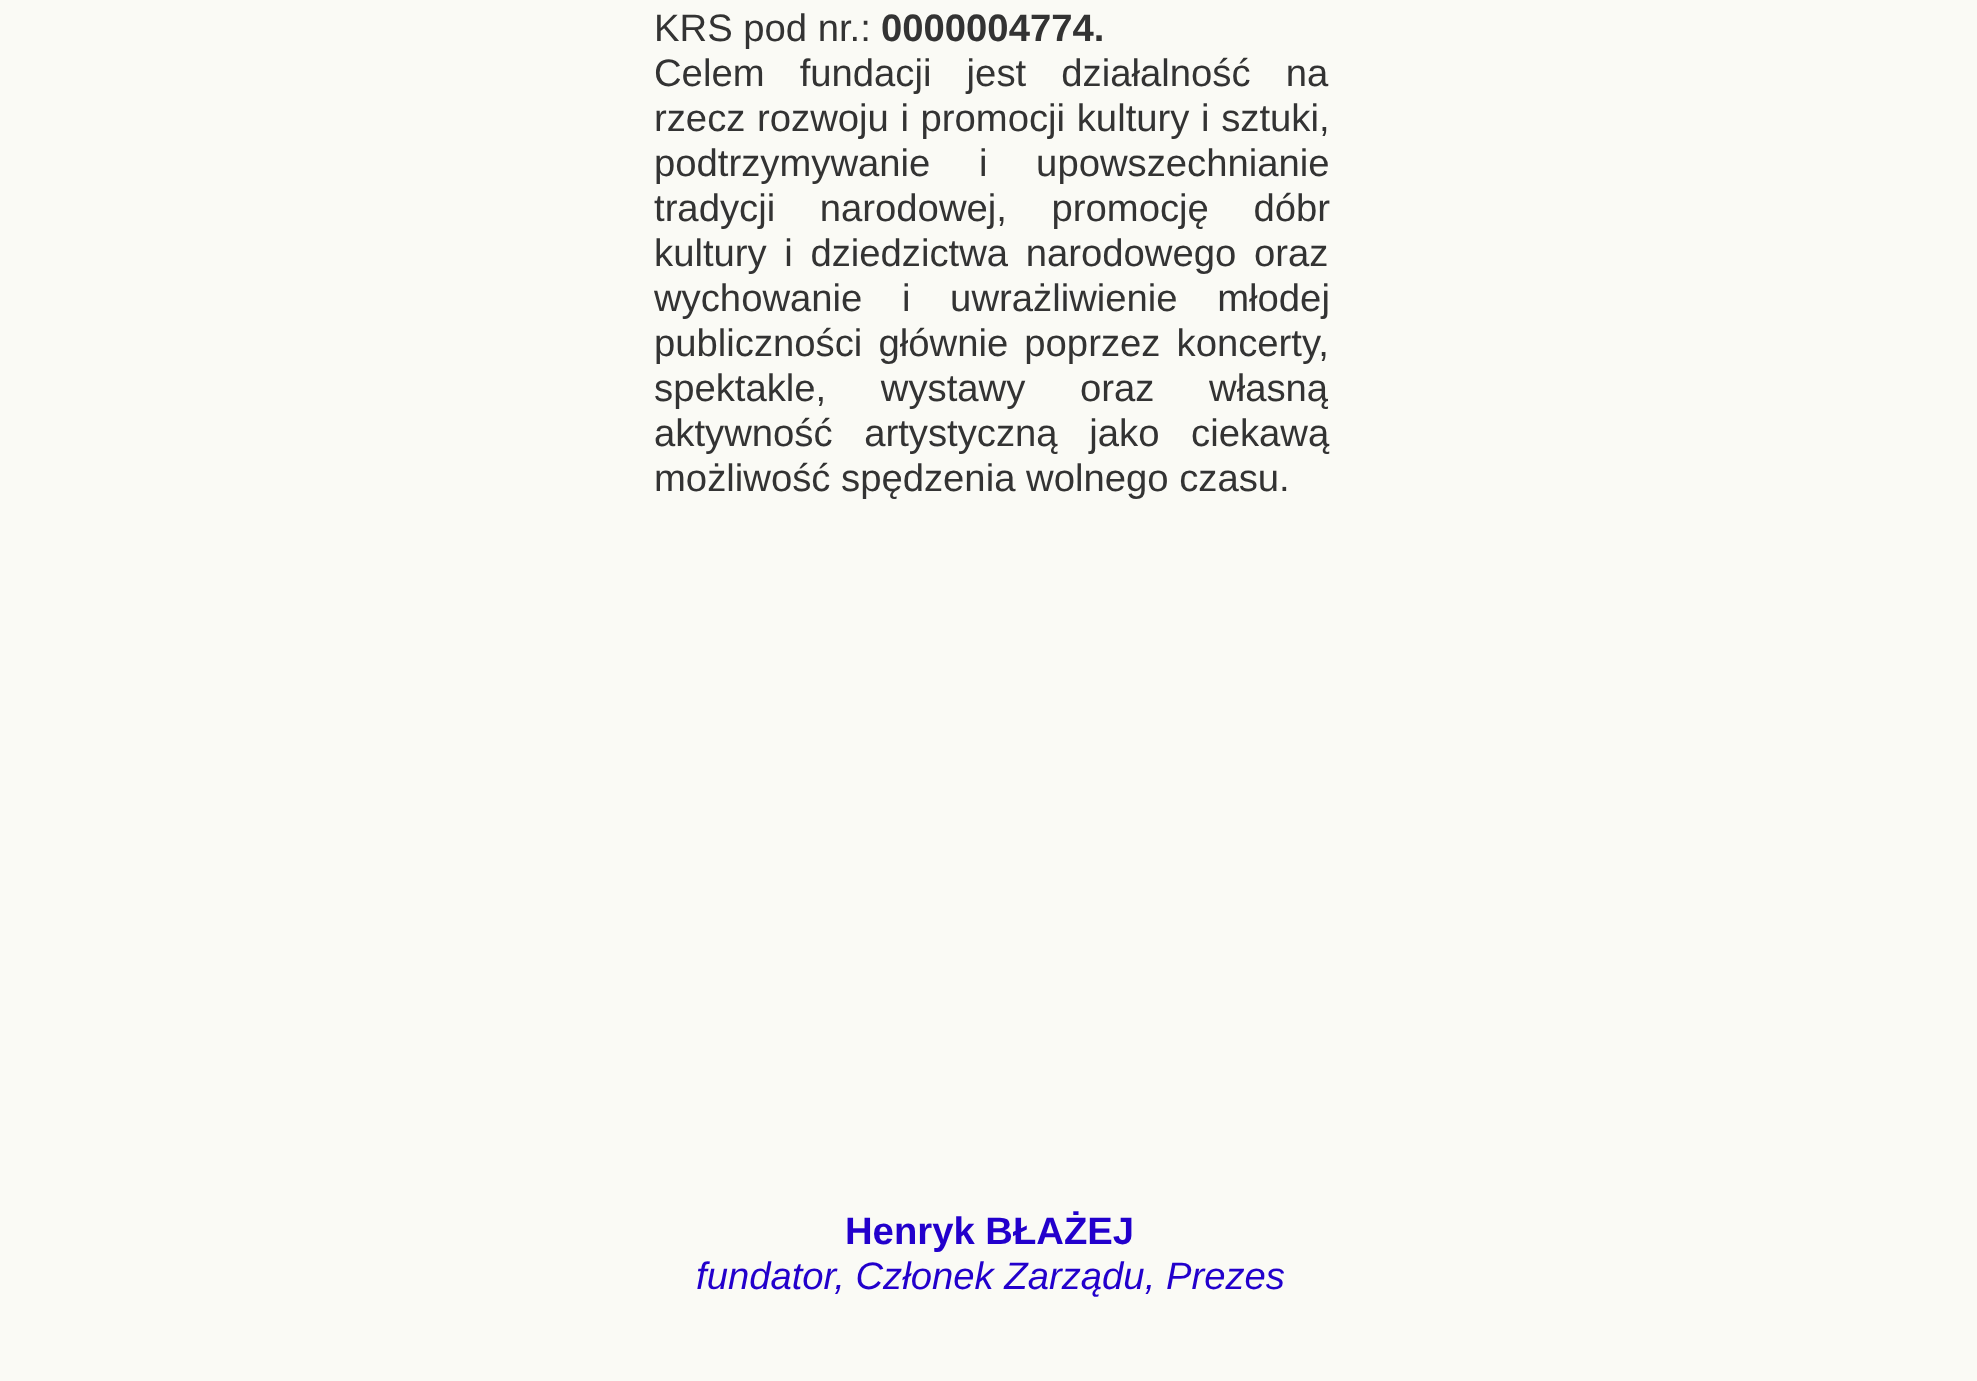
<!DOCTYPE html>
<meta charset="utf-8">
<style>body { margin: 0 } canvas { display: block }</style>
<canvas id="canvas" width="1977" height="1381"></canvas>
<script>
window.onload = function () {
    const canvas = document.getElementById('canvas');
    const context = canvas.getContext('2d');
    context.miterLimit = 4;
    context.fontKerning = 'normal';

    context.fillStyle = 'rgb(250, 250, 245)';
    context.fillRect(0, 0, 1977, 1381);
    context.font = '38.25px Liberation Sans';
    context.fillStyle = 'rgb(51, 51, 51)';
    context.fillText('KRS pod nr.:', 654, 41);
    context.font = 'bold 38.25px Liberation Sans';
    context.fillText('0000004774.', 881, 41);
    context.wordSpacing = '24.5px';
    context.font = '38.25px Liberation Sans';
    context.fillText('Celem fundacji jest działalność na', 654, 86);
    context.wordSpacing = '1px';
    context.fillText('rzecz rozwoju i promocji kultury i sztuki,', 654, 131);
    context.wordSpacing = '38px';
    context.fillText('podtrzymywanie i upowszechnianie', 654, 176);
    context.wordSpacing = '34px';
    context.fillText('tradycji narodowej, promocję dóbr', 654, 221);
    context.wordSpacing = '7px';
    context.fillText('kultury i dziedzictwa narodowego oraz', 654, 266);
    context.wordSpacing = '29px';
    context.fillText('wychowanie i uwrażliwienie młodej', 654, 311);
    context.wordSpacing = '5.5px';
    context.fillText('publiczności głównie poprzez koncerty,', 654, 356);
    context.wordSpacing = '44px';
    context.fillText('spektakle, wystawy oraz własną', 654, 401);
    context.wordSpacing = '21px';
    context.fillText('aktywność artystyczną jako ciekawą', 654, 446);
    context.wordSpacing = '0px';
    context.fillText('możliwość spędzenia wolnego czasu.', 654, 491);
    context.font = 'bold 38.25px Liberation Sans';
    context.fillStyle = 'rgb(34, 0, 204)';
    context.fillText('Henryk BŁAŻEJ', 845, 1244);
    context.font = 'italic 38.25px Liberation Sans';
    context.fillText('fundator, Członek Zarządu, Prezes', 696, 1289);
};
</script>
